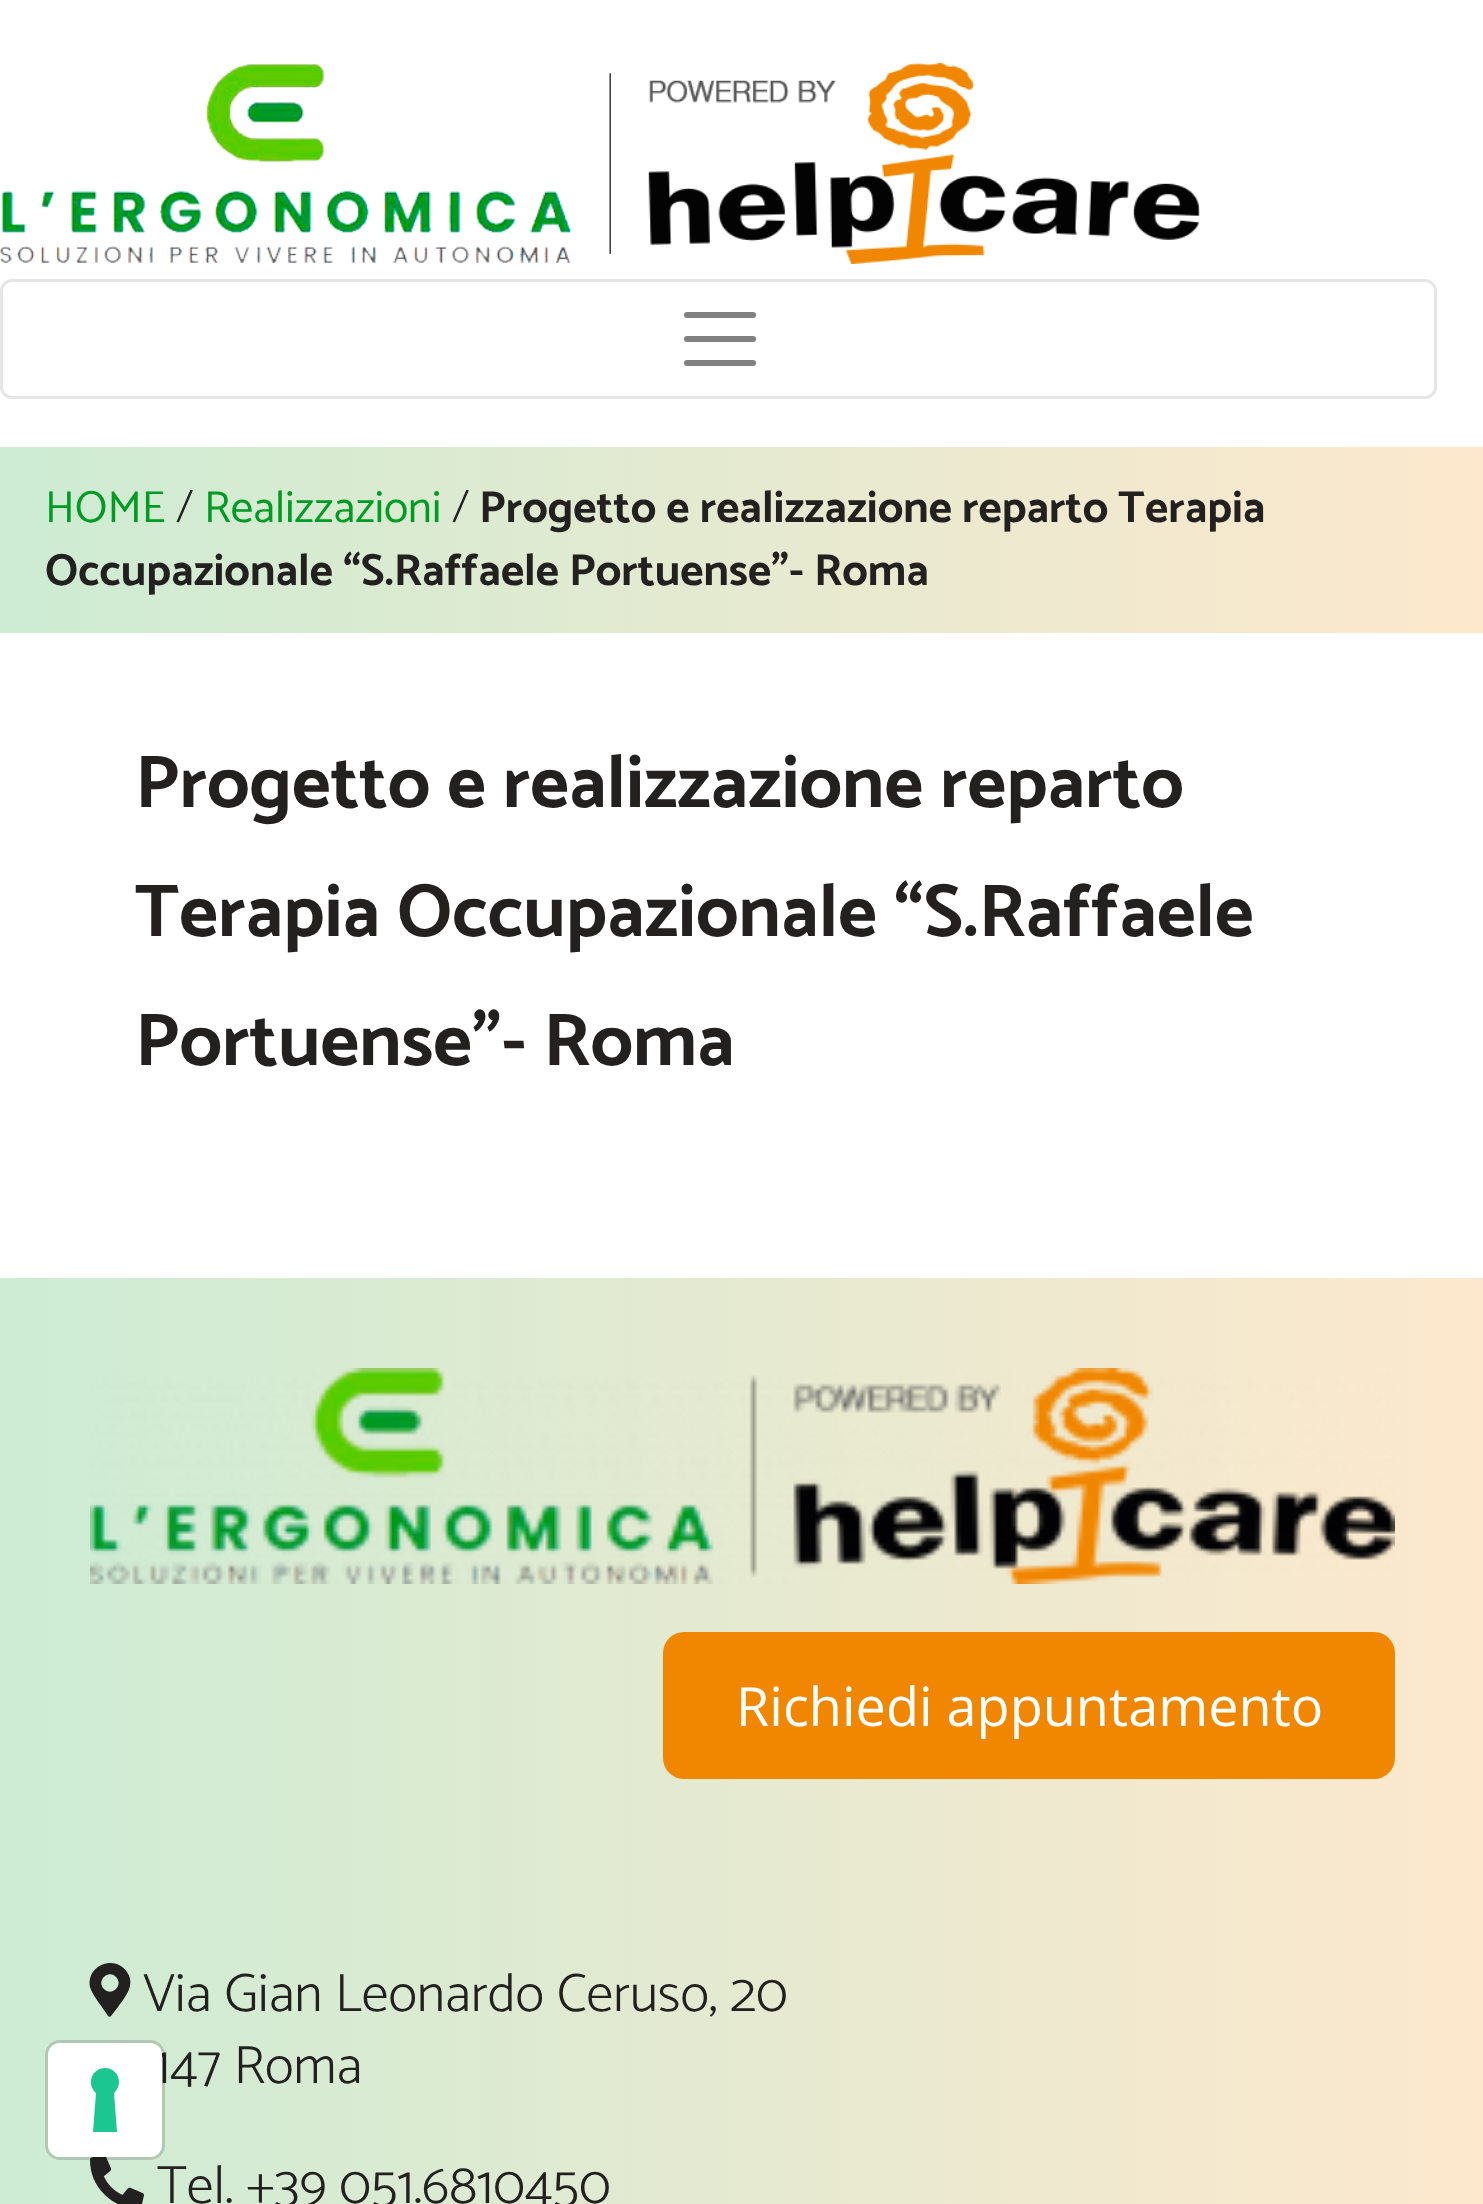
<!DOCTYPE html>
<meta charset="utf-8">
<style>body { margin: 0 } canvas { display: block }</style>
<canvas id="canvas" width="1483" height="2204"></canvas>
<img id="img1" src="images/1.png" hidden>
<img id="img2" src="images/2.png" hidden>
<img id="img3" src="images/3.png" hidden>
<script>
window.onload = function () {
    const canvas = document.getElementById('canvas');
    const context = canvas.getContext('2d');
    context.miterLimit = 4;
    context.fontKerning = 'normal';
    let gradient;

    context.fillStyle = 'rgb(255, 255, 255)';
    context.fillRect(0, 0, 1483, 2204);
    context.drawImage(document.getElementById('img1'), 0, 63, 1200, 201);
    context.beginPath();
    context.roundRect(1.5, 280.5, 1434, 117, 10.5);
    context.strokeStyle = 'rgb(230, 230, 230)';
    context.lineWidth = 3;
    context.stroke();
    context.beginPath();
    context.moveTo(687, 315);
    context.lineTo(753, 315);
    context.moveTo(687, 339);
    context.lineTo(753, 339);
    context.moveTo(687, 363);
    context.lineTo(753, 363);
    context.strokeStyle = 'rgb(128, 128, 128)';
    context.lineWidth = 6;
    context.lineCap = 'round';
    context.stroke();
    gradient = context.createLinearGradient(0, 540, 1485, 540);
    gradient.addColorStop(0, 'rgb(205, 236, 211)');
    gradient.addColorStop(1, 'rgb(253, 232, 205)');
    context.fillStyle = gradient;
    context.fillRect(0, 447, 1483, 186);
    gradient = context.createLinearGradient(0, 1976, 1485, 1976);
    gradient.addColorStop(0, 'rgb(205, 236, 212)');
    gradient.addColorStop(1, 'rgb(253, 232, 205)');
    context.fillStyle = gradient;
    context.fillRect(0, 1278, 1483, 926);
    context.drawImage(document.getElementById('img2'), 90, 1368, 1305, 216);
    context.fillStyle = 'rgb(241, 135, 0)';
    context.beginPath();
    context.roundRect(663, 1632, 732, 147, 21);
    context.fill();
    context.fillStyle = 'rgb(35, 32, 32)';
    context.beginPath();
    context.moveTo(108, 2016);
    context.bezierCurveTo(104, 2009, 92, 1995, 90, 1987);
    context.bezierCurveTo(86, 1965, 115, 1954, 127, 1972);
    context.bezierCurveTo(136, 1985, 125, 1997, 118, 2007);
    context.lineTo(111, 2016);
    context.bezierCurveTo(110, 2017, 109, 2017, 108, 2016);
    context.closePath();
    context.moveTo(104, 1989);
    context.bezierCurveTo(112, 1997, 124, 1985, 116, 1977);
    context.bezierCurveTo(108, 1969, 96, 1981, 104, 1989);
    context.closePath();
    context.fill();
    context.drawImage(document.getElementById('img3'), 90, 2157, 54, 47);
    context.font = '45px Catamaran';
    context.fillStyle = 'rgb(0, 155, 34)';
    context.fillText('HOME', 45, 522);
    context.font = '300 45px Catamaran';
    context.fillStyle = 'rgb(35, 32, 32)';
    context.fillText('/', 176, 522);
    context.font = '45px Catamaran';
    context.fillStyle = 'rgb(0, 155, 34)';
    context.fillText('Realizzazioni', 204, 522);
    context.font = '300 45px Catamaran';
    context.fillStyle = 'rgb(35, 32, 32)';
    context.fillText('/', 452, 522);
    context.font = 'bold 45px Catamaran';
    context.fillText('Progetto e realizzazione reparto Terapia', 479, 522);
    context.fillText('Occupazionale “S.Raffaele Portuense”- Roma', 45, 585);
    context.font = 'bold 75px Catamaran';
    context.fillText('Progetto e realizzazione reparto', 135, 807);
    context.fillText('Terapia Occupazionale “S.Raffaele', 135, 936);
    context.fillText('Portuense”- Roma', 135, 1065);
    context.font = '54px Open Sans';
    context.fillStyle = 'rgb(255, 255, 255)';
    context.fillText('Richiedi appuntamento', 736, 1726);
    context.font = '300 54px Catamaran';
    context.fillStyle = 'rgb(35, 32, 32)';
    context.fillText('Via Gian Leonardo Ceruso, 20', 143, 2011);
    context.fillText('147 Roma', 154, 2083);
    context.fillText('Tel. +39 051.6810450', 157, 2203);
    context.beginPath();
    context.roundRect(46.5, 2041.5, 117, 117, 13.5);
    context.strokeStyle = 'rgba(0, 0, 0, 0.15)';
    context.lineWidth = 3;
    context.stroke();
    context.fillStyle = 'rgb(255, 255, 255)';
    context.beginPath();
    context.roundRect(48, 2043, 114, 114, 12);
    context.fill();
    context.fillStyle = 'rgb(28, 198, 145)';
    context.beginPath();
    context.moveTo(105, 2068);
    context.bezierCurveTo(118, 2068, 124, 2084, 114, 2093);
    context.lineTo(117, 2132);
    context.lineTo(93, 2132);
    context.lineTo(96, 2093);
    context.bezierCurveTo(86, 2084, 92, 2068, 105, 2068);
    context.closePath();
    context.fill('evenodd');
};
</script>
